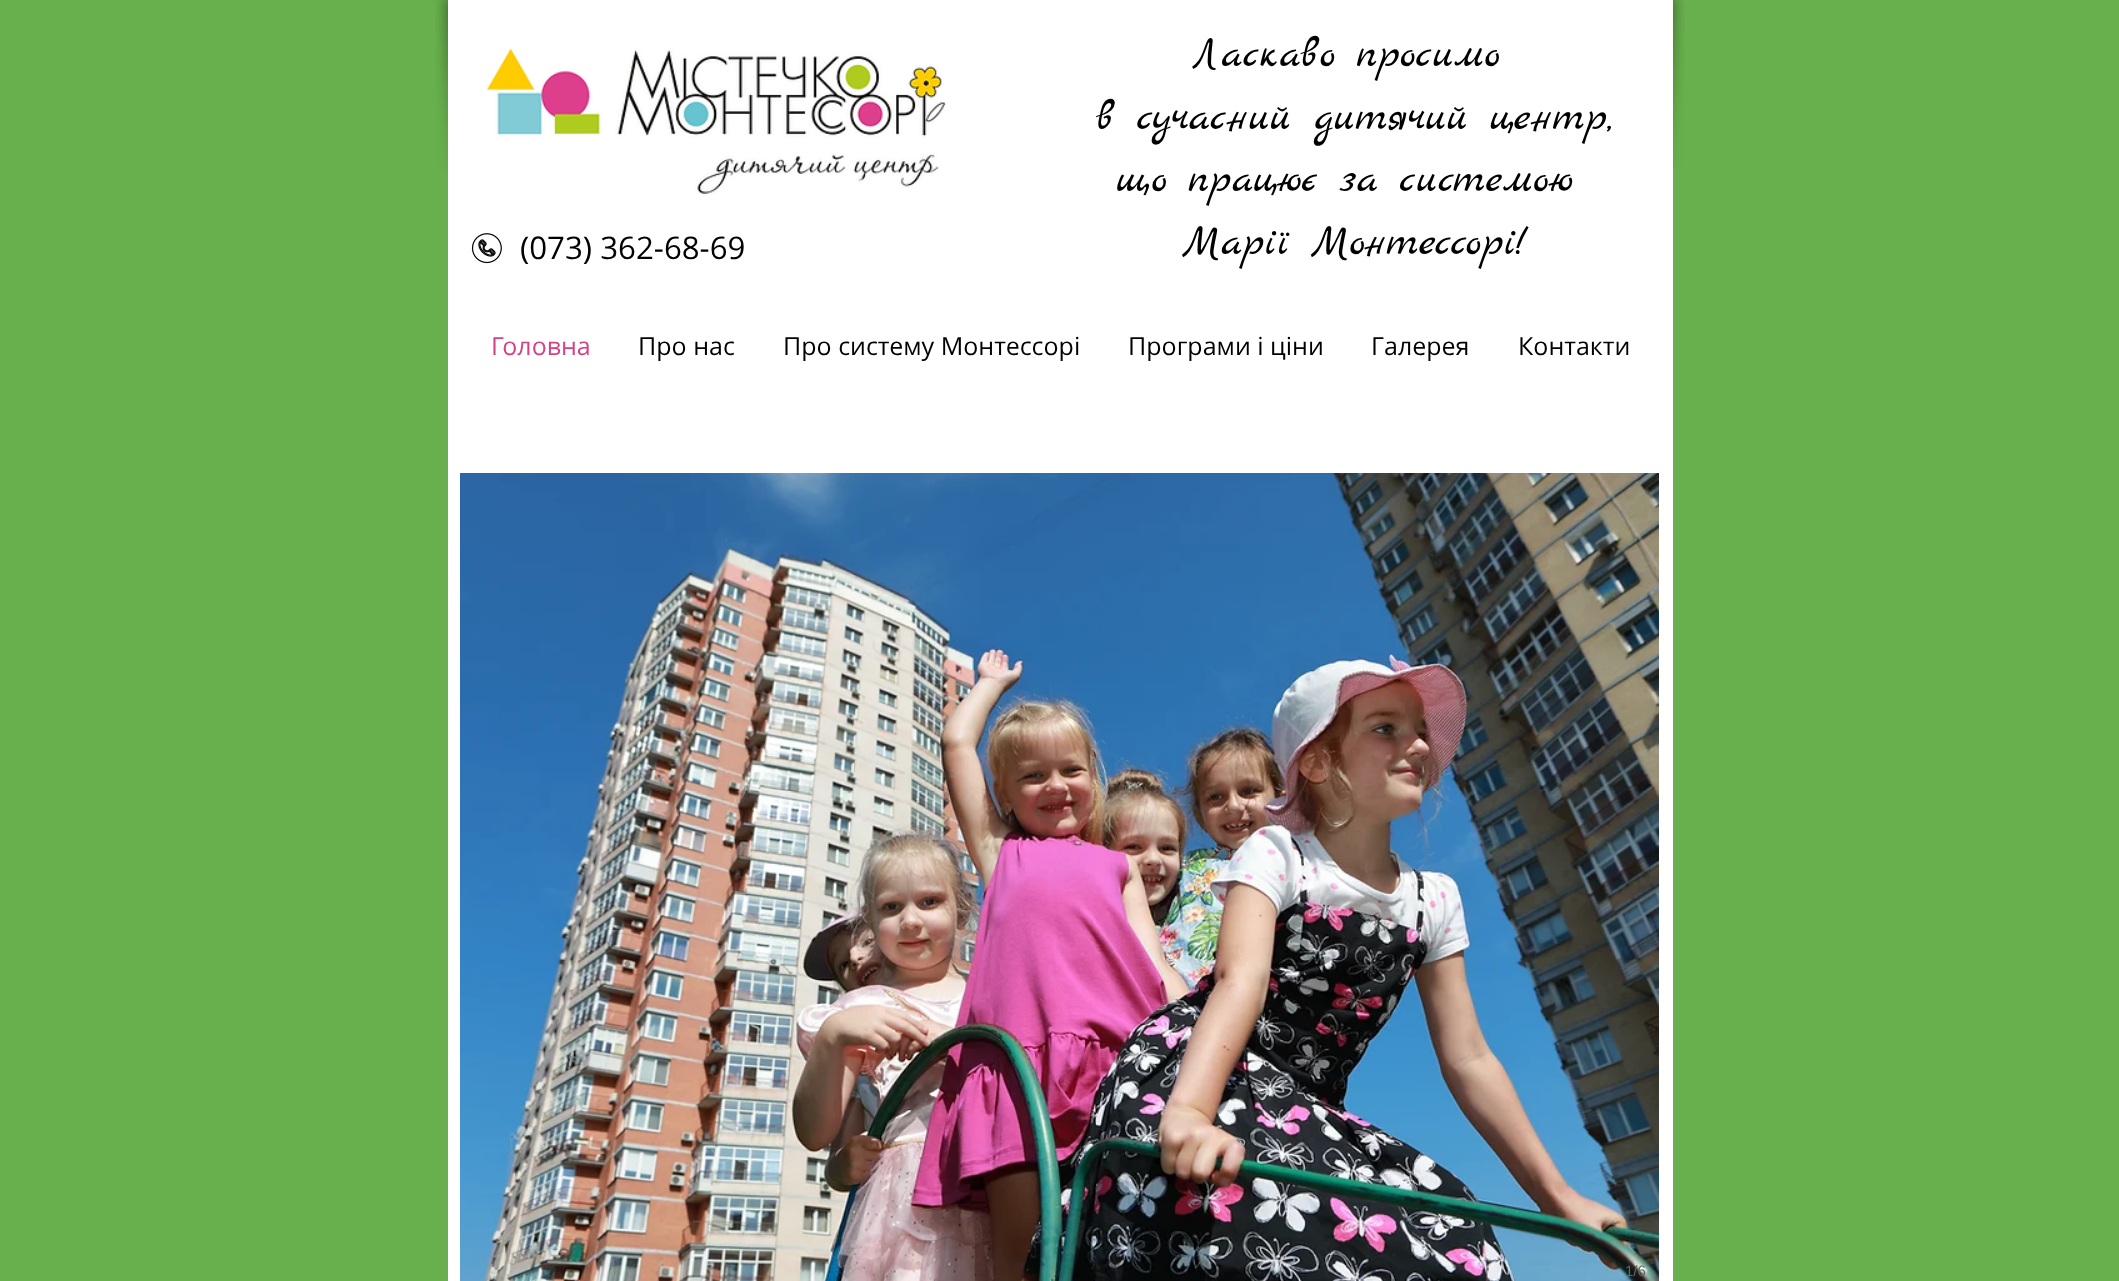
<!DOCTYPE html>
<meta charset="utf-8">
<style>body { margin: 0 } canvas { display: block }</style>
<canvas id="canvas" width="2119" height="1281"></canvas>
<img id="img1" src="images/1.png" hidden>
<img id="img2" src="images/2.png" hidden>
<img id="img3" src="images/3.png" hidden>
<img id="img4" src="images/4.png" hidden>
<img id="img5" src="images/5.png" hidden>
<script>
window.onload = function () {
    const canvas = document.getElementById('canvas');
    const context = canvas.getContext('2d');
    context.miterLimit = 4;
    context.fontKerning = 'normal';

    context.fillStyle = 'rgb(104, 176, 77)';
    context.fillRect(0, 0, 2119, 1281);
    context.drawImage(document.getElementById('img1'), 435, 0, 13, 172);
    context.fillStyle = 'rgb(255, 255, 255)';
    context.fillRect(448, 0, 1225, 1281);
    context.drawImage(document.getElementById('img2'), 1673, 0, 12, 168);
    context.drawImage(document.getElementById('img3'), 486, 48, 460, 146);
    context.drawImage(document.getElementById('img4'), 471, 233, 31, 31);
    context.drawImage(document.getElementById('img5'), 460, 473, 1199, 808);
    context.font = '43.75px Marck Script';
    context.fillStyle = 'rgb(0, 0, 0)';
    context.fillText('Ласкаво просимо', 1190, 66);
    context.fillText('в сучасний дитячий центр,', 1096, 129);
    context.fillText('що працює за системою', 1116, 191);
    context.fillText('Марії Монтессорі!', 1182, 254);
    context.font = '31.25px Open Sans';
    context.fillText('(073) 362-68-69', 520, 259);
    context.font = '25px Open Sans';
    context.fillStyle = 'rgb(211, 66, 135)';
    context.fillText('Головна', 491, 355);
    context.fillStyle = 'rgb(0, 0, 0)';
    context.fillText('Про нас', 638, 355);
    context.fillText('Про систему Монтессорі', 783, 355);
    context.fillText('Програми і ціни', 1128, 355);
    context.fillText('Галерея', 1371, 355);
    context.fillText('Контакти', 1518, 355);
    context.font = '15px Liberation Sans';
    context.fillStyle = 'rgb(97, 104, 99)';
    context.fillText('1/6', 1625, 1276);
};
</script>
